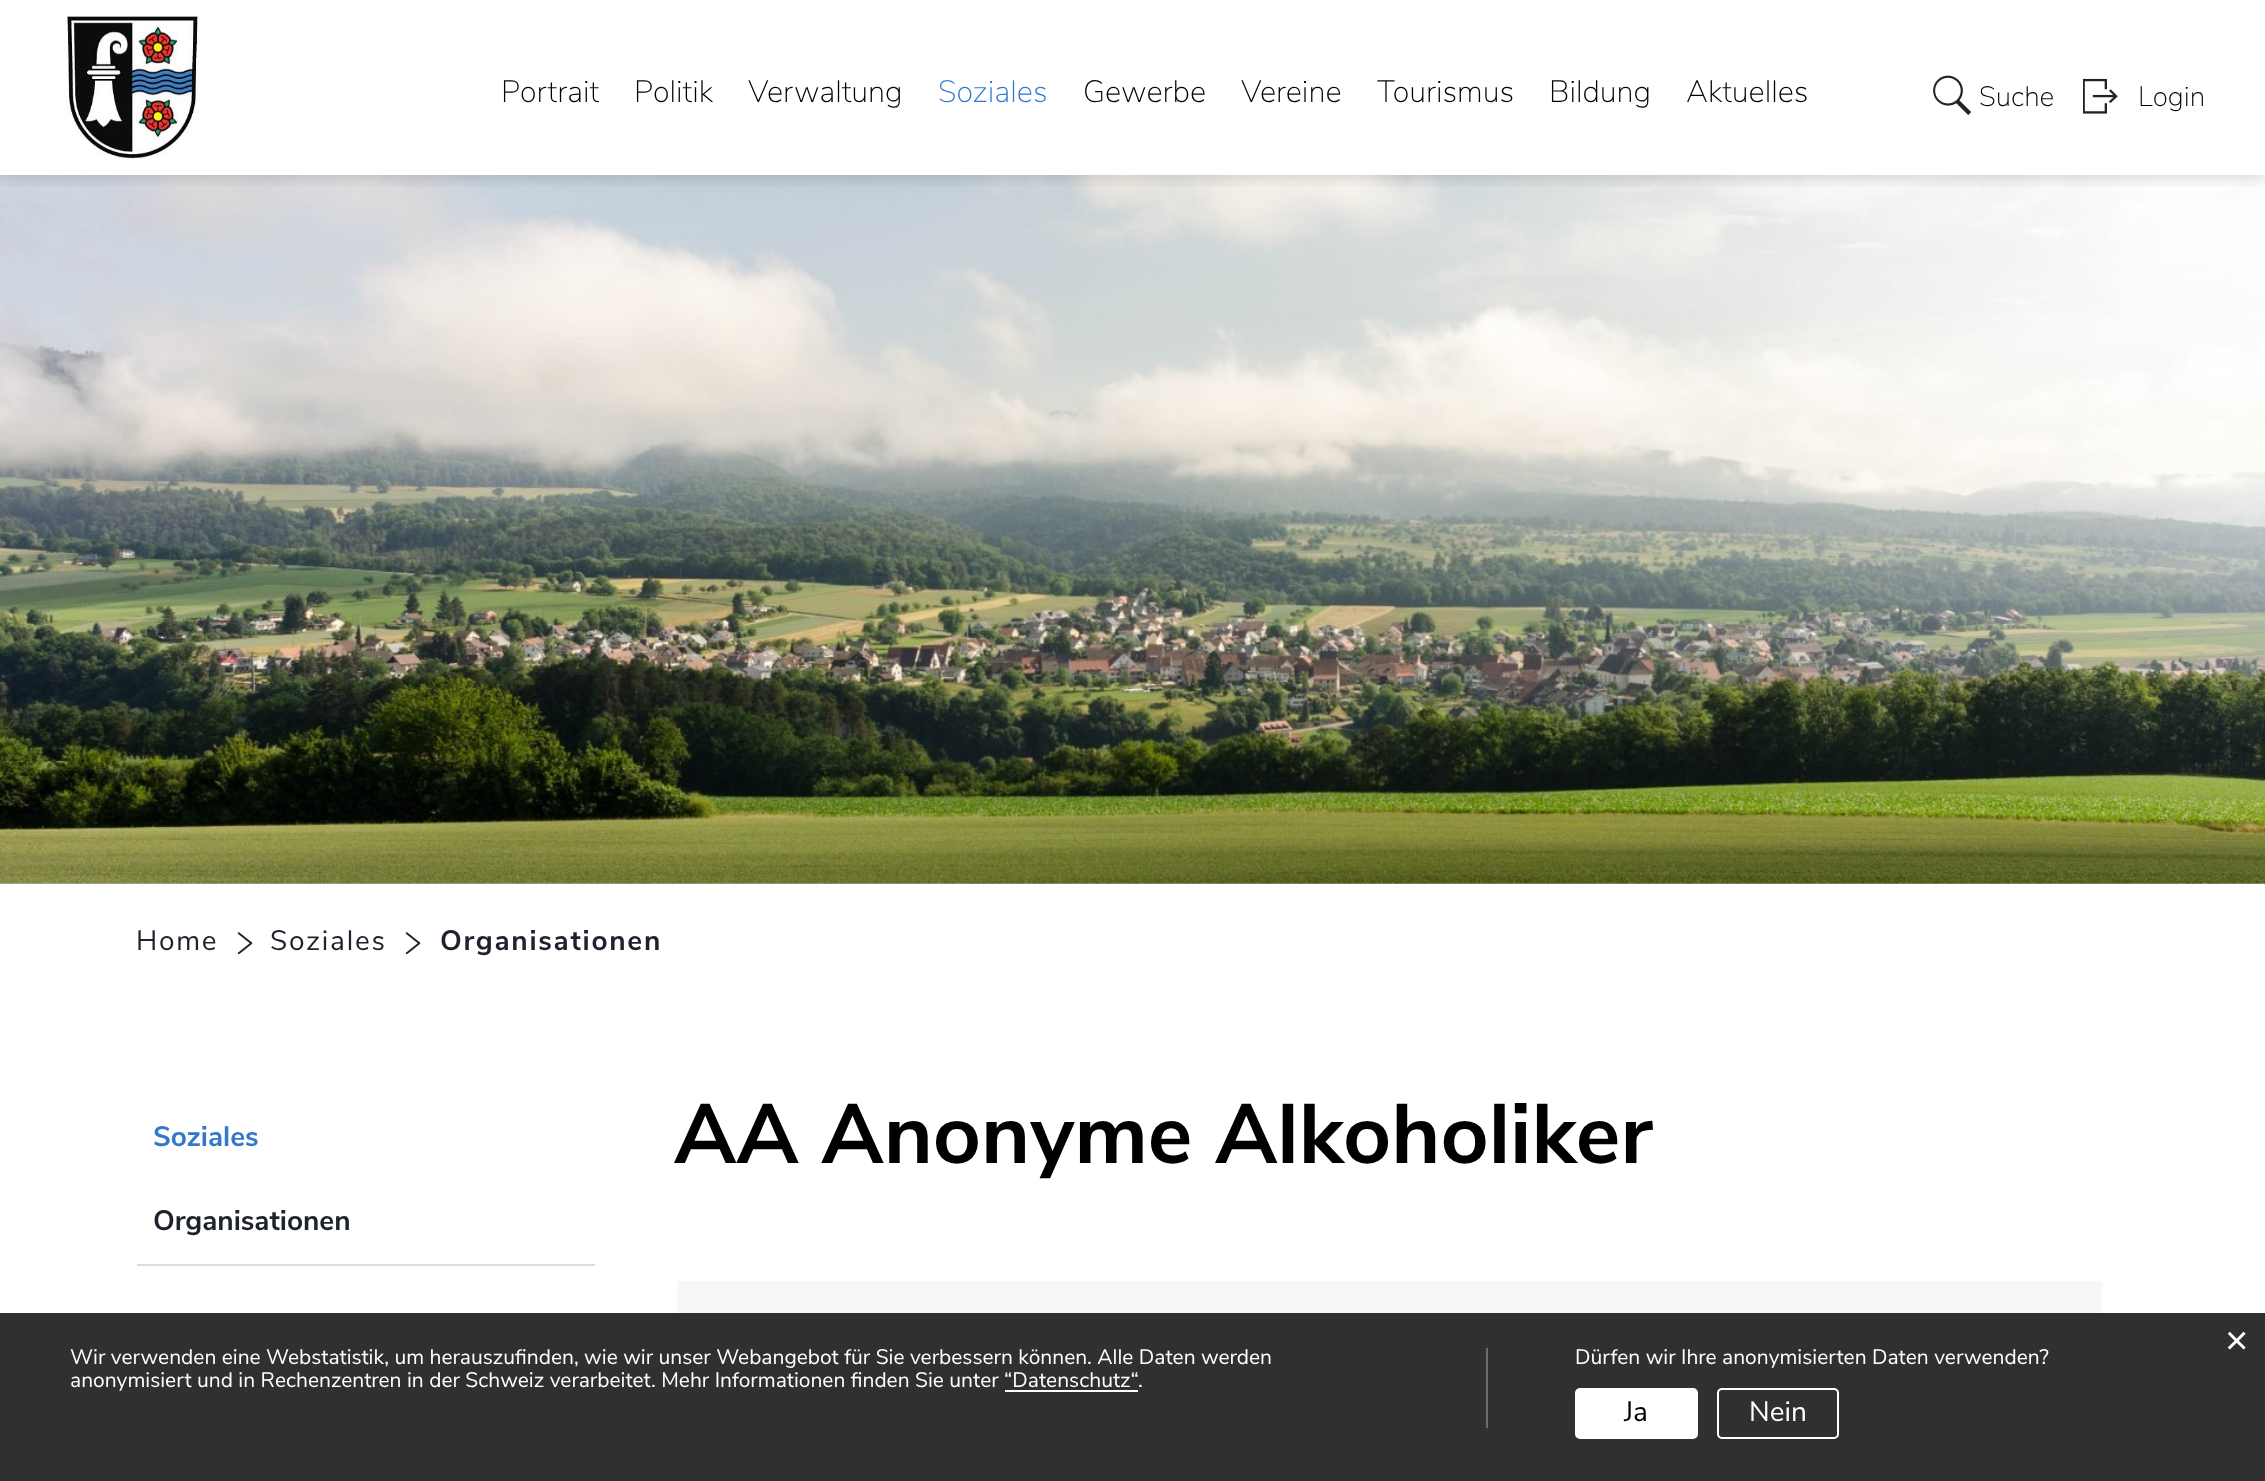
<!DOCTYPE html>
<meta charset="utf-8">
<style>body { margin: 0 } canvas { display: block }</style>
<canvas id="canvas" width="2265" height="1481"></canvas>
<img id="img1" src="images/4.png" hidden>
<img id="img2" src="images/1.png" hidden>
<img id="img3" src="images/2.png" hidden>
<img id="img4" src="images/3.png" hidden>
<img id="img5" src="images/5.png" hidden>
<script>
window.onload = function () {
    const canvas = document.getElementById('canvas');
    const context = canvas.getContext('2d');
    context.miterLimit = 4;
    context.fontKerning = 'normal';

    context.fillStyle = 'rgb(255, 255, 255)';
    context.fillRect(0, 0, 2265, 1481);
    context.drawImage(document.getElementById('img1'), 0, 175, 2265, 709);
    context.save();
    context.beginPath();
    context.rect(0, 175, 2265, 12);
    context.clip();
    context.fillStyle = 'rgba(0, 0, 0, 0.2)';
    context.filter = 'blur(9px)';
    context.beginPath();
    context.rect(0, 0, 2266, 175);
    context.fill();
    context.filter = 'none';
    context.restore();
    context.drawImage(document.getElementById('img2'), 67, 16, 133, 145);
    context.drawImage(document.getElementById('img3'), 1933, 75, 38, 40);
    context.drawImage(document.getElementById('img4'), 2083, 78, 35, 36);
    context.drawImage(document.getElementById('img5'), 237, 932, 16, 23);
    context.drawImage(document.getElementById('img5'), 405, 932, 16, 23);
    context.fillStyle = 'rgb(221, 221, 221)';
    context.fillRect(137, 1264, 458, 2);
    context.fillStyle = 'rgb(247, 247, 247)';
    context.fillRect(677, 1281, 1425, 200);
    context.fillStyle = 'rgba(25, 25, 25, 0.9)';
    context.fillRect(0, 1313, 2265, 168);
    context.fillStyle = 'rgb(109, 109, 109)';
    context.fillRect(1486, 1348, 2, 80);
    context.fillStyle = 'rgb(255, 255, 255)';
    context.fillRect(1005, 1390, 133, 2);
    context.beginPath();
    context.roundRect(1576, 1389, 121, 49, 4);
    context.fill();
    context.strokeStyle = 'rgb(255, 255, 255)';
    context.lineWidth = 2;
    context.stroke();
    context.beginPath();
    context.roundRect(1718, 1389, 120, 49, 4);
    context.stroke();
    context.font = '200 30.75px Nunito Sans';
    context.fillStyle = 'rgb(0, 0, 0)';
    context.fillText('Portrait', 501, 102);
    context.fillText('Politik', 634, 102);
    context.fillText('Verwaltung', 748, 102);
    context.fillStyle = 'rgb(52, 120, 205)';
    context.fillText('Soziales', 938, 102);
    context.fillStyle = 'rgb(0, 0, 0)';
    context.fillText('Gewerbe', 1083, 102);
    context.fillText('Vereine', 1241, 102);
    context.fillText('Tourismus', 1377, 102);
    context.fillText('Bildung', 1549, 102);
    context.fillText('Aktuelles', 1686, 102);
    context.font = '200 28px Nunito Sans';
    context.fillText('Suche', 1979, 106);
    context.fillText('Login', 2138, 106);
    context.letterSpacing = '1.75px';
    context.font = '28px Nunito Sans';
    context.fillStyle = 'rgb(30, 34, 45)';
    context.fillText('Home', 136, 950);
    context.fillText('Soziales', 270, 950);
    context.font = 'bold 28px Nunito Sans';
    context.fillText('Organisationen', 440, 950);
    context.letterSpacing = '0px';
    context.fillStyle = 'rgb(52, 120, 205)';
    context.fillText('Soziales', 153, 1146);
    context.fillStyle = 'rgb(30, 34, 45)';
    context.fillText('Organisationen', 153, 1230);
    context.font = 'bold 84px Nunito Sans';
    context.fillStyle = 'rgb(0, 0, 0)';
    context.fillText('AA Anonyme Alkoholiker', 674, 1163);
    context.font = '40px Liberation Sans';
    context.fillStyle = 'rgb(255, 255, 255)';
    context.fillText('×', 2225, 1354);
    context.font = '21px Nunito Sans';
    context.fillText('Wir verwenden eine Webstatistik, um herauszufinden, wie wir unser Webangebot für Sie verbessern können. Alle Daten werden', 70, 1364);
    context.fillText('anonymisiert und in Rechenzentren in der Schweiz verarbeitet. Mehr Informationen finden Sie unter “Datenschutz“', 70, 1387);
    context.fillText('.', 1138, 1387);
    context.fillText('Dürfen wir Ihre anonymisierten Daten verwenden?', 1575, 1364);
    context.font = '28px Nunito Sans';
    context.fillStyle = 'rgb(0, 0, 0)';
    context.fillText('Ja', 1624, 1421);
    context.fillStyle = 'rgb(255, 255, 255)';
    context.fillText('Nein', 1749, 1421);
};
</script>
